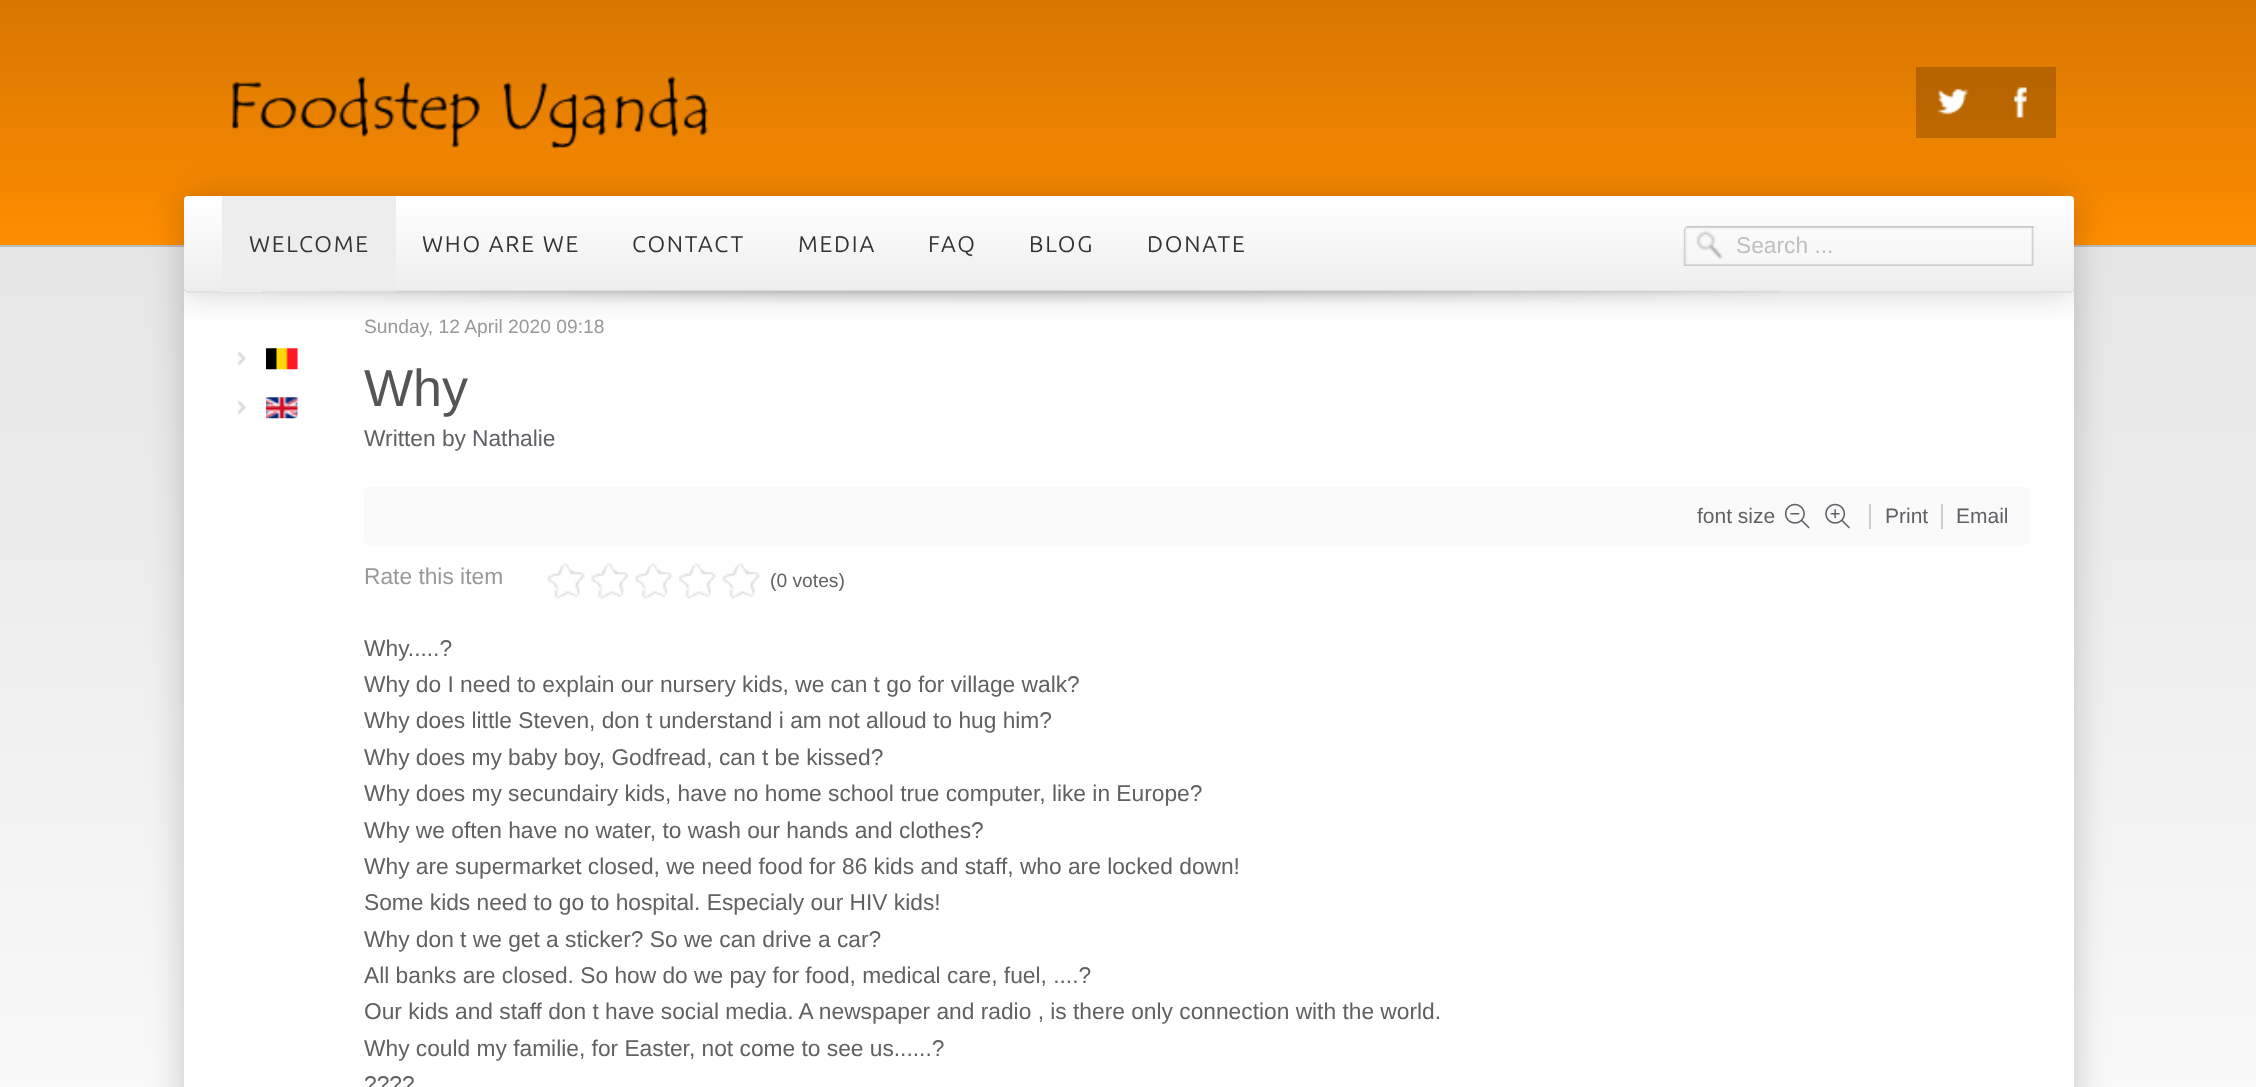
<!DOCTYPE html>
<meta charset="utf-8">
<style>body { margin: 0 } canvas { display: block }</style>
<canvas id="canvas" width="2256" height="1087"></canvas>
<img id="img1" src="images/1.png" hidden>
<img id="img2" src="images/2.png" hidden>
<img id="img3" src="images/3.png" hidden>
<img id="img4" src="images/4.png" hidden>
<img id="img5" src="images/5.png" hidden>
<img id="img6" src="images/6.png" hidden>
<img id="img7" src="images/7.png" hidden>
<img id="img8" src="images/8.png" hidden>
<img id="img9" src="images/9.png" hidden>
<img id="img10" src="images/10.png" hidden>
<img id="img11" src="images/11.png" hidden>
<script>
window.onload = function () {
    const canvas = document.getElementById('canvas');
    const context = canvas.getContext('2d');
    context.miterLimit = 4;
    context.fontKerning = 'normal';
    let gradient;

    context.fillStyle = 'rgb(255, 255, 255)';
    context.fillRect(0, 0, 2256, 1087);
    gradient = context.createLinearGradient(1129, 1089, 1129, 0);
    gradient.addColorStop(0, 'rgb(249, 249, 249)');
    gradient.addColorStop(1, 'rgb(224, 224, 224)');
    context.fillStyle = gradient;
    context.fillRect(0, 247, 2256, 840);
    gradient = context.createLinearGradient(1129, 245, 1129, 0);
    gradient.addColorStop(0, 'rgb(255, 141, 0)');
    gradient.addColorStop(1, 'rgb(215, 118, 0)');
    context.fillStyle = gradient;
    context.fillRect(0, 0, 2256, 245);
    gradient = context.createLinearGradient(1129, 245, 1129, 0);
    gradient.addColorStop(0, 'rgb(204, 113, 0)');
    gradient.addColorStop(1, 'rgb(172, 94, 0)');
    context.fillStyle = gradient;
    context.fillRect(1986, 67, 70, 71);
    context.fillRect(1916, 67, 70, 71);
    context.fillStyle = 'rgb(187, 187, 187)';
    context.fillRect(0, 245, 2256, 2);
    context.drawImage(document.getElementById('img1'), 231, 76, 477, 73);
    context.drawImage(document.getElementById('img2'), 1937, 88, 32, 27);
    context.drawImage(document.getElementById('img3'), 2013, 87, 14, 31);
    context.fillStyle = 'rgba(0, 0, 0, 0.2)';
    context.filter = 'blur(17.5px)';
    context.beginPath();
    context.rect(184, 291, 1890, 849);
    context.fill();
    context.filter = 'none';
    context.fillStyle = 'rgb(255, 255, 255)';
    context.fillRect(184, 291, 1890, 796);
    context.fillStyle = 'rgba(0, 0, 0, 0.2)';
    context.filter = 'blur(17.5px)';
    context.beginPath();
    context.roundRect(184, 196, 1890, 96, 4);
    context.fill();
    context.filter = 'none';
    context.fillStyle = 'rgb(255, 255, 255)';
    context.beginPath();
    context.roundRect(184, 196, 1890, 96, 4);
    context.fill();
    gradient = context.createLinearGradient(1129, 291, 1129, 196);
    gradient.addColorStop(0, 'rgba(0, 0, 0, 0.07)');
    gradient.addColorStop(0.95, 'rgba(255, 255, 255, 0.07)');
    gradient.addColorStop(1, 'rgba(255, 255, 255, 0.07)');
    context.fillStyle = gradient;
    context.beginPath();
    context.roundRect(184, 196, 1890, 95, [4, 4, 0, 0]);
    context.fill();
    context.fillStyle = 'rgb(225, 225, 225)';
    context.fillRect(186, 291, 1886, 2);
    context.fillStyle = 'rgb(237, 237, 237)';
    context.fillRect(222, 196, 174, 96);
    context.drawImage(document.getElementById('img4'), 262, 290, 1518, 13);
    context.drawImage(document.getElementById('img5'), 1683, 226, 351, 40);
    context.fillStyle = 'rgba(0, 0, 0, 0.04)';
    context.beginPath();
    context.moveTo(1689, 228);
    context.lineTo(2034, 228);
    context.bezierCurveTo(2036, 228, 2039, 230, 2039, 233);
    context.bezierCurveTo(2039, 230, 2038, 226, 2034, 226);
    context.lineTo(1689, 226);
    context.bezierCurveTo(1685, 226, 1684, 230, 1684, 233);
    context.bezierCurveTo(1684, 230, 1686, 228, 1689, 228);
    context.closePath();
    context.fill();
    context.drawImage(document.getElementById('img6'), 238, 351, 9, 15);
    context.drawImage(document.getElementById('img7'), 266, 348, 32, 22);
    context.drawImage(document.getElementById('img6'), 238, 400, 9, 15);
    context.drawImage(document.getElementById('img8'), 266, 397, 32, 22);
    context.fillStyle = 'rgb(250, 250, 250)';
    context.beginPath();
    context.roundRect(364, 487, 1666, 59, 7);
    context.fill();
    context.drawImage(document.getElementById('img9'), 1784, 503, 26, 26);
    context.drawImage(document.getElementById('img10'), 1825, 503, 25, 26);
    context.fillStyle = 'rgb(204, 204, 204)';
    context.fillRect(1869, 504, 2, 25);
    context.fillRect(1941, 504, 2, 25);
    context.drawImage(document.getElementById('img11'), 547, 563, 213, 36);
    context.letterSpacing = '1.75px';
    context.font = '22.75px Ubuntu';
    context.fillStyle = 'rgb(51, 51, 51)';
    context.fillText('WELCOME', 249, 252);
    context.fillText('WHO ARE WE', 422, 252);
    context.fillText('CONTACT', 632, 252);
    context.fillText('MEDIA', 798, 252);
    context.fillText('FAQ', 928, 252);
    context.fillText('BLOG', 1029, 252);
    context.fillText('DONATE', 1147, 252);
    context.letterSpacing = '0px';
    context.font = '22.75px Liberation Sans';
    context.fillStyle = 'rgb(191, 191, 192)';
    context.fillText('Search ...', 1736, 253);
    context.font = '19.25px Liberation Sans';
    context.fillStyle = 'rgb(153, 153, 153)';
    context.fillText('Sunday, 12 April 2020 09:18', 364, 333);
    context.font = '52px Liberation Sans';
    context.fillStyle = 'rgb(85, 85, 85)';
    context.fillText('Why', 364, 406);
    context.font = '22.75px Liberation Sans';
    context.fillStyle = 'rgb(97, 97, 97)';
    context.fillText('Written by', 364, 446);
    context.fillStyle = 'rgb(97, 96, 104)';
    context.fillText('Nathalie', 472, 446);
    context.font = '21px Liberation Sans';
    context.fillStyle = 'rgb(97, 97, 97)';
    context.fillText('font size', 1697, 523);
    context.fillStyle = 'rgb(97, 96, 104)';
    context.fillText('Print', 1885, 523);
    context.fillText('Email', 1956, 523);
    context.font = '22.75px Liberation Sans';
    context.fillStyle = 'rgb(153, 153, 153)';
    context.fillText('Rate this item', 364, 584);
    context.font = '19.25px Liberation Sans';
    context.fillStyle = 'rgb(97, 97, 97)';
    context.fillText('(0 votes)', 770, 587);
    context.font = '22.75px Liberation Sans';
    context.fillText('Why.....?', 364, 656);
    context.fillText('Why do I need to explain our nursery kids, we can t go for village walk?', 364, 692);
    context.fillText('Why does little Steven, don t understand i am not alloud to hug him?', 364, 728);
    context.fillText('Why does my baby boy, Godfread, can t be kissed?', 364, 765);
    context.fillText('Why does my secundairy kids, have no home school true computer, like in Europe?', 364, 801);
    context.fillText('Why we often have no water, to wash our hands and clothes?', 364, 838);
    context.fillText('Why are supermarket closed, we need food for 86 kids and staff, who are locked down!', 364, 874);
    context.fillText('Some kids need to go to hospital. Especialy our HIV kids!', 364, 910);
    context.fillText('Why don t we get a sticker? So we can drive a car?', 364, 947);
    context.fillText('All banks are closed. So how do we pay for food, medical care, fuel, ....?', 364, 983);
    context.fillText('Our kids and staff don t have social media. A newspaper and radio , is there only connection with the world.', 364, 1019);
    context.fillText('Why could my familie, for Easter, not come to see us......?', 364, 1056);
    context.fillText('????', 364, 1092);
};
</script>
